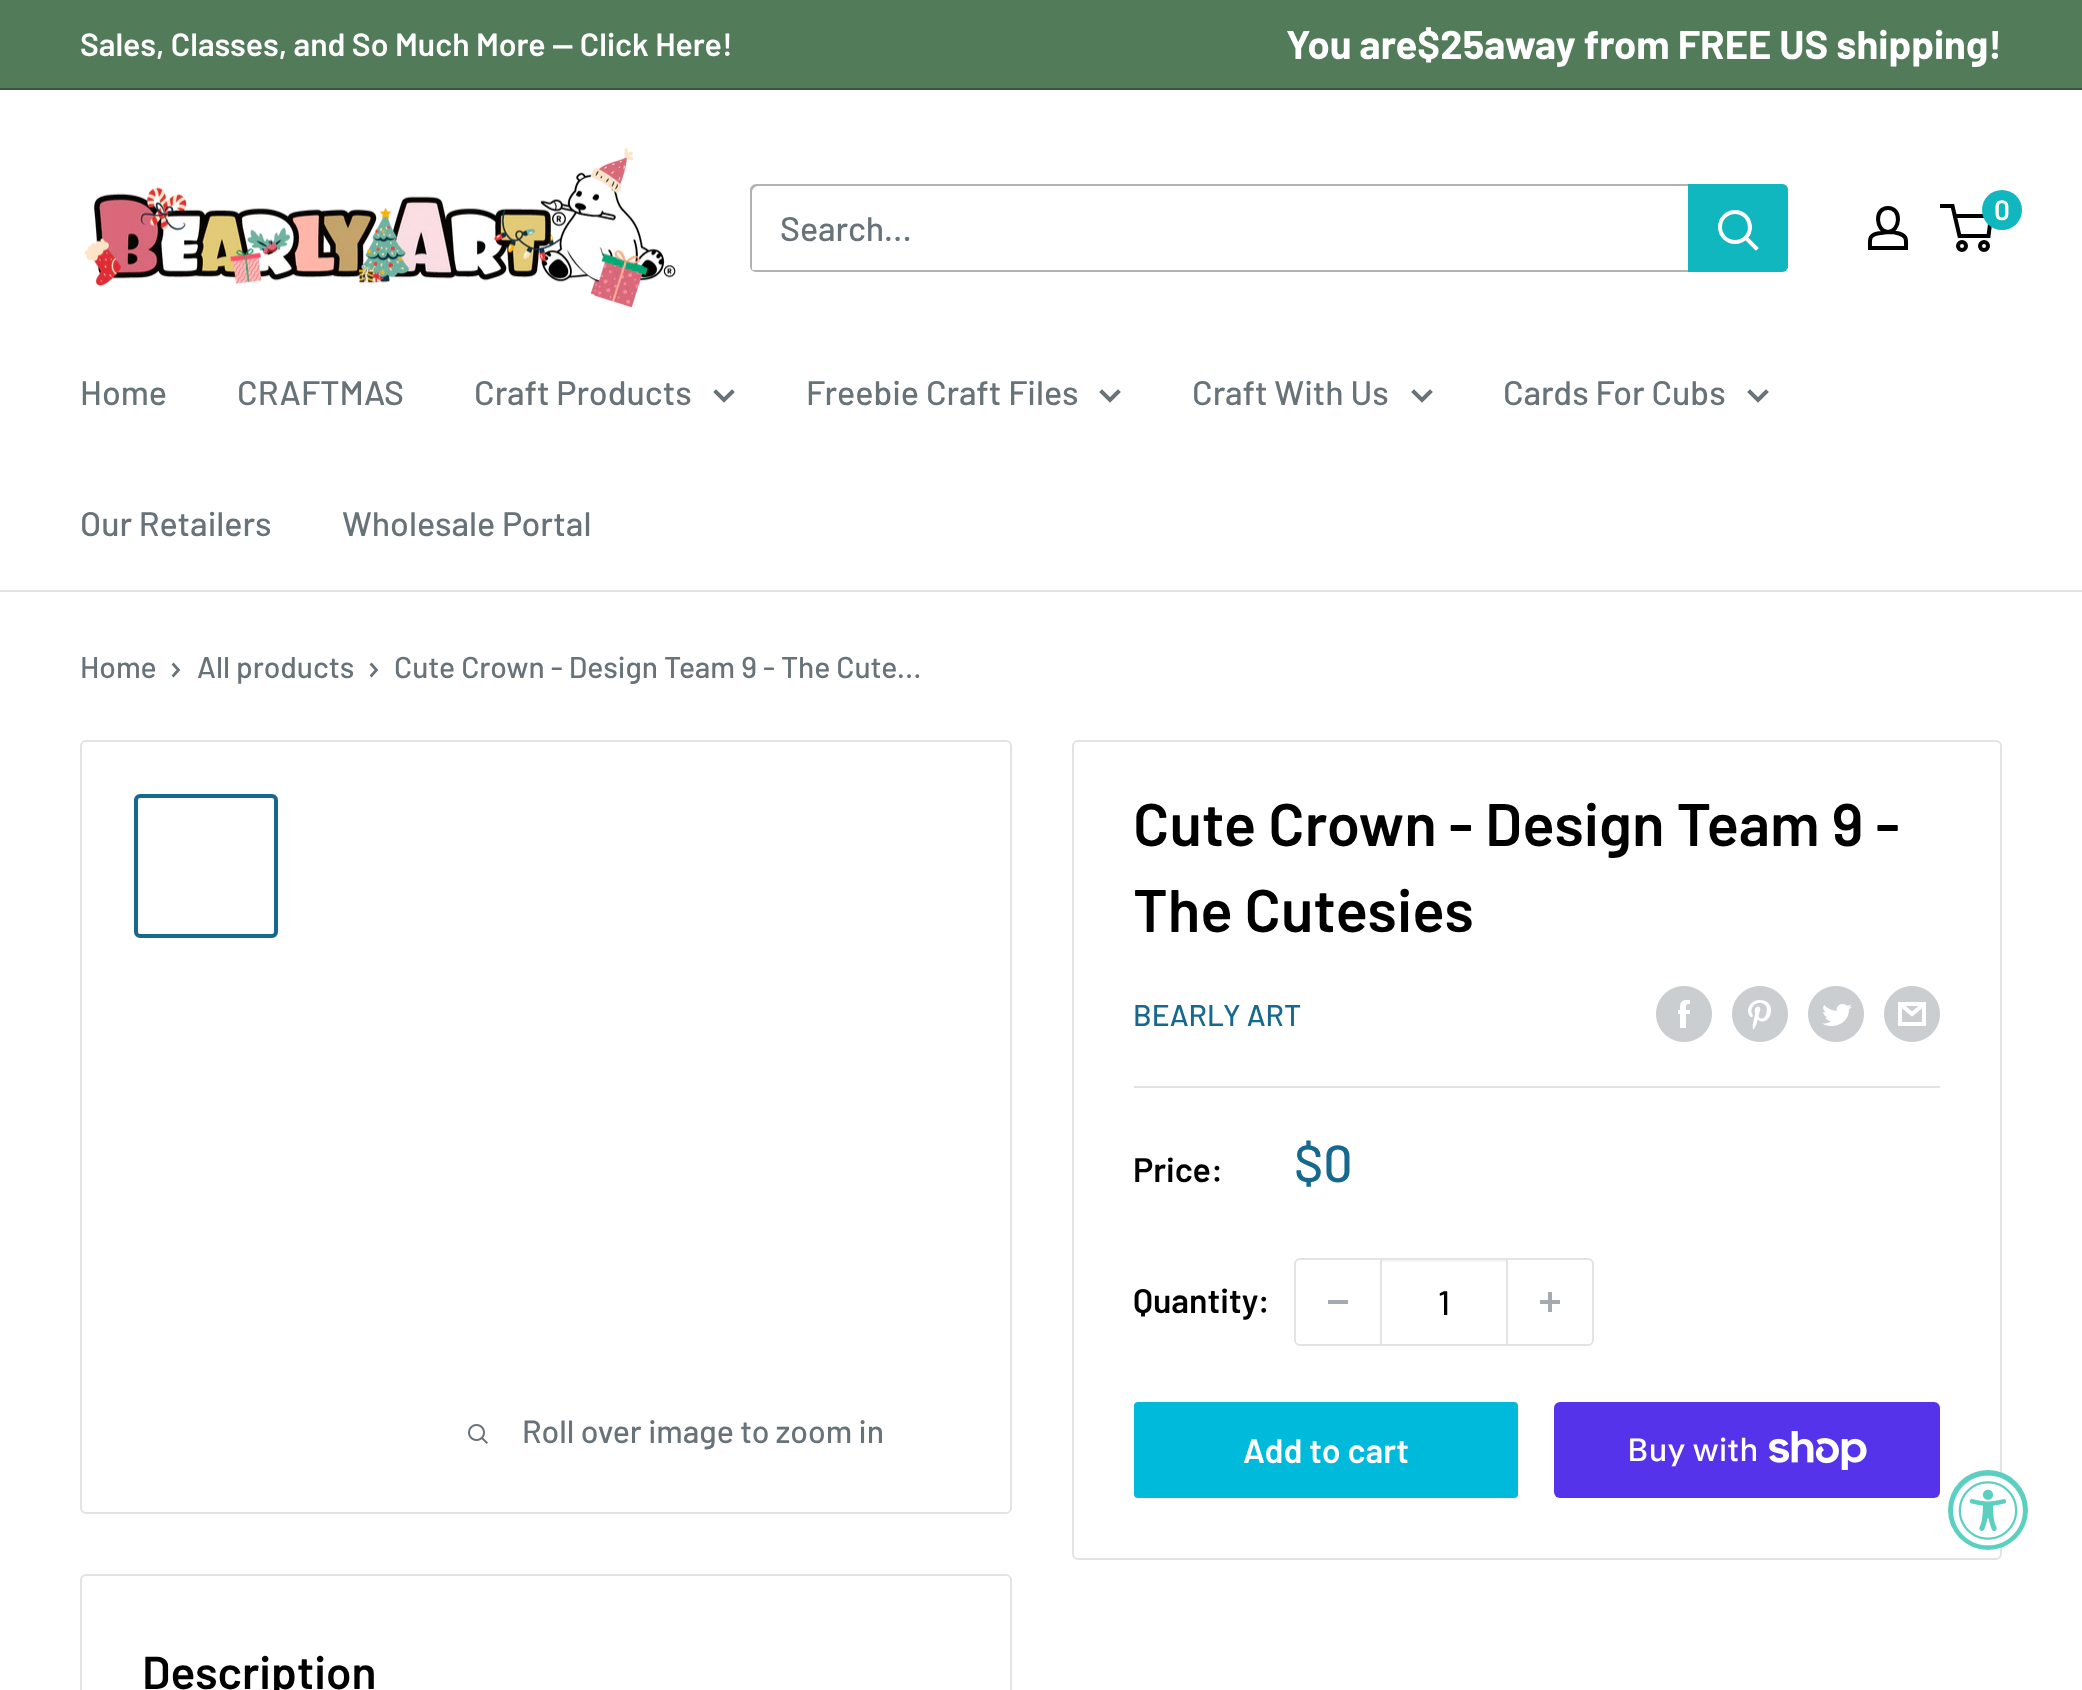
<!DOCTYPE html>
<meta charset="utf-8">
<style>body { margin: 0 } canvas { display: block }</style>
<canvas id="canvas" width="2082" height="1690"></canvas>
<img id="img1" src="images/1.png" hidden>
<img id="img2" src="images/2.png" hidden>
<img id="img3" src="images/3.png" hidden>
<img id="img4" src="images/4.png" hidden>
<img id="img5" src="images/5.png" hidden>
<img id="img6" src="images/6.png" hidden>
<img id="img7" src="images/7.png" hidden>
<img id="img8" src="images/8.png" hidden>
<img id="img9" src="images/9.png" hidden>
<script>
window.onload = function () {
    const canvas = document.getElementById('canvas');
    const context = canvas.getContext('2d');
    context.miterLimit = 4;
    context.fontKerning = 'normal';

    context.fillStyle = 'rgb(255, 255, 255)';
    context.fillRect(0, 0, 2082, 1690);
    context.fillStyle = 'rgb(82, 123, 90)';
    context.fillRect(0, 0, 2082, 88);
    context.fillStyle = 'rgb(57, 86, 63)';
    context.fillRect(0, 88, 2082, 2);
    context.drawImage(document.getElementById('img1'), 84, 148, 592, 160);
    context.beginPath();
    context.moveTo(1888, 232);
    context.bezierCurveTo(1892, 232, 1895.5, 232.5, 1899, 233.5);
    context.bezierCurveTo(1907.5, 236, 1906, 240.5, 1906, 248);
    context.lineTo(1870, 248);
    context.bezierCurveTo(1870, 240, 1868.5, 235.5, 1877.5, 233.5);
    context.closePath();
    context.moveTo(1888, 232);
    context.bezierCurveTo(1876, 232, 1873.5, 208, 1888, 208);
    context.bezierCurveTo(1902.5, 208, 1900, 232, 1888, 232);
    context.closePath();
    context.strokeStyle = 'rgb(0, 0, 0)';
    context.lineWidth = 4;
    context.stroke();
    context.beginPath();
    context.arc(1962, 246, 4, 0, 2 * Math.PI);
    context.stroke();
    context.beginPath();
    context.arc(1984, 246, 4, 0, 2 * Math.PI);
    context.stroke();
    context.beginPath();
    context.moveTo(1954.5, 216);
    context.lineTo(1991, 216);
    context.lineTo(1988.5, 236);
    context.lineTo(1959.5, 236);
    context.lineTo(1952.5, 206);
    context.lineTo(1940, 206);
    context.stroke();
    context.fillStyle = 'rgb(16, 183, 191)';
    context.beginPath();
    context.arc(2002, 210, 20, 0, 2 * Math.PI);
    context.fill();
    context.fillStyle = 'rgb(179, 179, 179)';
    context.beginPath();
    context.moveTo(751, 269);
    context.bezierCurveTo(752, 271, 754, 272, 756, 272);
    context.lineTo(1782, 272);
    context.bezierCurveTo(1785, 272, 1788, 269, 1788, 266);
    context.lineTo(1788, 190);
    context.bezierCurveTo(1788, 188, 1787, 186, 1785, 185);
    context.bezierCurveTo(1786, 186, 1786, 187, 1786, 188);
    context.lineTo(1786, 264);
    context.bezierCurveTo(1786, 267, 1783, 270, 1780, 270);
    context.lineTo(754, 270);
    context.bezierCurveTo(753, 270, 752, 270, 751, 269);
    context.closePath();
    context.fill();
    context.fillStyle = 'rgba(0, 0, 0, 0.3)';
    context.beginPath();
    context.moveTo(758, 186);
    context.lineTo(1784, 186);
    context.lineTo(1787, 187);
    context.bezierCurveTo(1786, 185, 1784, 184, 1782, 184);
    context.lineTo(756, 184);
    context.bezierCurveTo(753, 184, 750, 187, 750, 190);
    context.lineTo(750, 266);
    context.bezierCurveTo(750, 268, 751, 270, 753, 271);
    context.bezierCurveTo(752, 270, 752, 269, 752, 268);
    context.lineTo(752, 192);
    context.bezierCurveTo(752, 189, 755, 186, 758, 186);
    context.closePath();
    context.fill();
    context.fillStyle = 'rgb(16, 183, 191)';
    context.beginPath();
    context.roundRect(1688, 184, 100, 88, [0, 6, 6, 0]);
    context.fill();
    context.beginPath();
    context.moveTo(1756, 248);
    context.lineTo(1746, 238);
    context.strokeStyle = 'rgb(255, 255, 255)';
    context.lineCap = 'square';
    context.stroke();
    context.beginPath();
    context.arc(1735, 227, 15, 0, 2 * Math.PI);
    context.stroke();
    context.fillStyle = 'rgb(225, 227, 228)';
    context.fillRect(0, 590, 2082, 2);
    context.beginPath();
    context.moveTo(732, 392);
    context.lineTo(724, 400);
    context.lineTo(716, 392);
    context.strokeStyle = 'rgb(103, 114, 121)';
    context.stroke();
    context.beginPath();
    context.moveTo(1118, 392);
    context.lineTo(1110, 400);
    context.lineTo(1102, 392);
    context.stroke();
    context.beginPath();
    context.moveTo(1430, 392);
    context.lineTo(1422, 400);
    context.lineTo(1414, 392);
    context.stroke();
    context.beginPath();
    context.moveTo(1766, 392);
    context.lineTo(1758, 400);
    context.lineTo(1750, 392);
    context.stroke();
    context.beginPath();
    context.moveTo(173.5, 664.5);
    context.lineTo(178.5, 670);
    context.lineTo(173.5, 675.5);
    context.lineWidth = 2.7;
    context.stroke();
    context.beginPath();
    context.moveTo(371.5, 664.5);
    context.lineTo(376.5, 670);
    context.lineTo(371.5, 675.5);
    context.stroke();
    context.beginPath();
    context.roundRect(81, 741, 930, 772, 5);
    context.strokeStyle = 'rgb(225, 227, 228)';
    context.lineWidth = 2;
    context.stroke();
    context.beginPath();
    context.roundRect(136, 796, 140, 140, 4);
    context.strokeStyle = 'rgb(23, 104, 142)';
    context.lineWidth = 4;
    context.stroke();
    context.drawImage(document.getElementById('img2'), 468, 1424, 20, 20);
    context.beginPath();
    context.roundRect(1073, 741, 928, 818, 5);
    context.strokeStyle = 'rgb(225, 227, 228)';
    context.lineWidth = 2;
    context.stroke();
    context.drawImage(document.getElementById('img3'), 1656, 986, 56, 56);
    context.drawImage(document.getElementById('img4'), 1732, 986, 56, 56);
    context.drawImage(document.getElementById('img5'), 1808, 986, 56, 56);
    context.drawImage(document.getElementById('img6'), 1884, 986, 56, 56);
    context.fillRect(1134, 1086, 806, 2);
    context.beginPath();
    context.roundRect(1295, 1259, 298, 86, 5);
    context.stroke();
    context.fillStyle = 'rgb(164, 170, 175)';
    context.fillRect(1328, 1300, 20, 4);
    context.fillStyle = 'rgb(243, 244, 244)';
    context.fillRect(1382, 1260, 124, 2);
    context.fillStyle = 'rgb(225, 227, 228)';
    context.fillRect(1506, 1260, 2, 84);
    context.fillRect(1380, 1260, 2, 84);
    context.drawImage(document.getElementById('img7'), 1540, 1292, 20, 20);
    context.fillStyle = 'rgb(0, 186, 219)';
    context.beginPath();
    context.roundRect(1134, 1402, 384, 96, 4);
    context.fill();
    context.fillStyle = 'rgb(84, 51, 235)';
    context.beginPath();
    context.roundRect(1554, 1402, 386, 96, 6);
    context.fill();
    context.drawImage(document.getElementById('img8'), 1769, 1431, 98, 39);
    context.beginPath();
    context.roundRect(81, 1575, 930, 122, 5);
    context.stroke();
    context.fillStyle = 'rgb(92, 208, 192)';
    context.beginPath();
    context.arc(1988, 1510, 40, 0, 2 * Math.PI);
    context.fill();
    context.drawImage(document.getElementById('img9'), 1953, 1475, 70, 71);
    context.font = '600 32px Barlow';
    context.fillStyle = 'rgb(255, 255, 255)';
    context.fillText('Sales, Classes, and So Much More — Click Here!', 80, 56);
    context.font = 'bold 40px Barlow';
    context.fillText('You are$25away from FREE US shipping!', 1286, 59);
    context.font = '600 28px Barlow';
    context.fillText('0', 1994, 220);
    context.font = '500 34px Barlow';
    context.fillStyle = 'rgb(103, 114, 121)';
    context.fillText('Search...', 780, 241);
    context.fillText('Home', 80, 405);
    context.fillText('CRAFTMAS', 237, 405);
    context.fillText('Craft Products', 474, 405);
    context.fillText('Freebie Craft Files', 806, 405);
    context.fillText('Craft With Us', 1192, 405);
    context.fillText('Cards For Cubs', 1503, 405);
    context.fillText('Our Retailers', 80, 536);
    context.fillText('Wholesale Portal', 342, 536);
    context.font = '500 30px Barlow';
    context.fillText('Home', 80, 678);
    context.fillText('All products', 197, 678);
    context.fillText('Cute Crown - Design Team 9 - The Cute...', 394, 678);
    context.font = '500 32px Barlow';
    context.fillText('Roll over image to zoom in', 522, 1443);
    context.font = '600 60px Barlow';
    context.fillStyle = 'rgb(0, 0, 0)';
    context.fillText('Cute Crown - Design Team 9 -', 1133, 846);
    context.fillText('The Cutesies', 1133, 932);
    context.font = '500 30px Barlow';
    context.fillStyle = 'rgb(23, 104, 142)';
    context.fillText('BEARLY ART', 1133, 1026);
    context.font = '600 34px Barlow';
    context.fillStyle = 'rgb(0, 0, 0)';
    context.fillText('Price:', 1133, 1182);
    context.font = '500 52px Barlow';
    context.fillStyle = 'rgb(23, 104, 142)';
    context.fillText('$0', 1294, 1182);
    context.font = '600 34px Barlow';
    context.fillStyle = 'rgb(0, 0, 0)';
    context.fillText('Quantity:', 1133, 1313);
    context.font = '500 34px Barlow';
    context.fillText('1', 1438, 1315);
    context.font = '600 34px Barlow';
    context.fillStyle = 'rgb(255, 255, 255)';
    context.fillText('Add to cart', 1243, 1463);
    context.font = '500 32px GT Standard';
    context.fillText('Buy with', 1627, 1461);
    context.font = '600 46px Barlow';
    context.fillStyle = 'rgb(0, 0, 0)';
    context.fillText('Description', 142, 1689);
};
</script>
